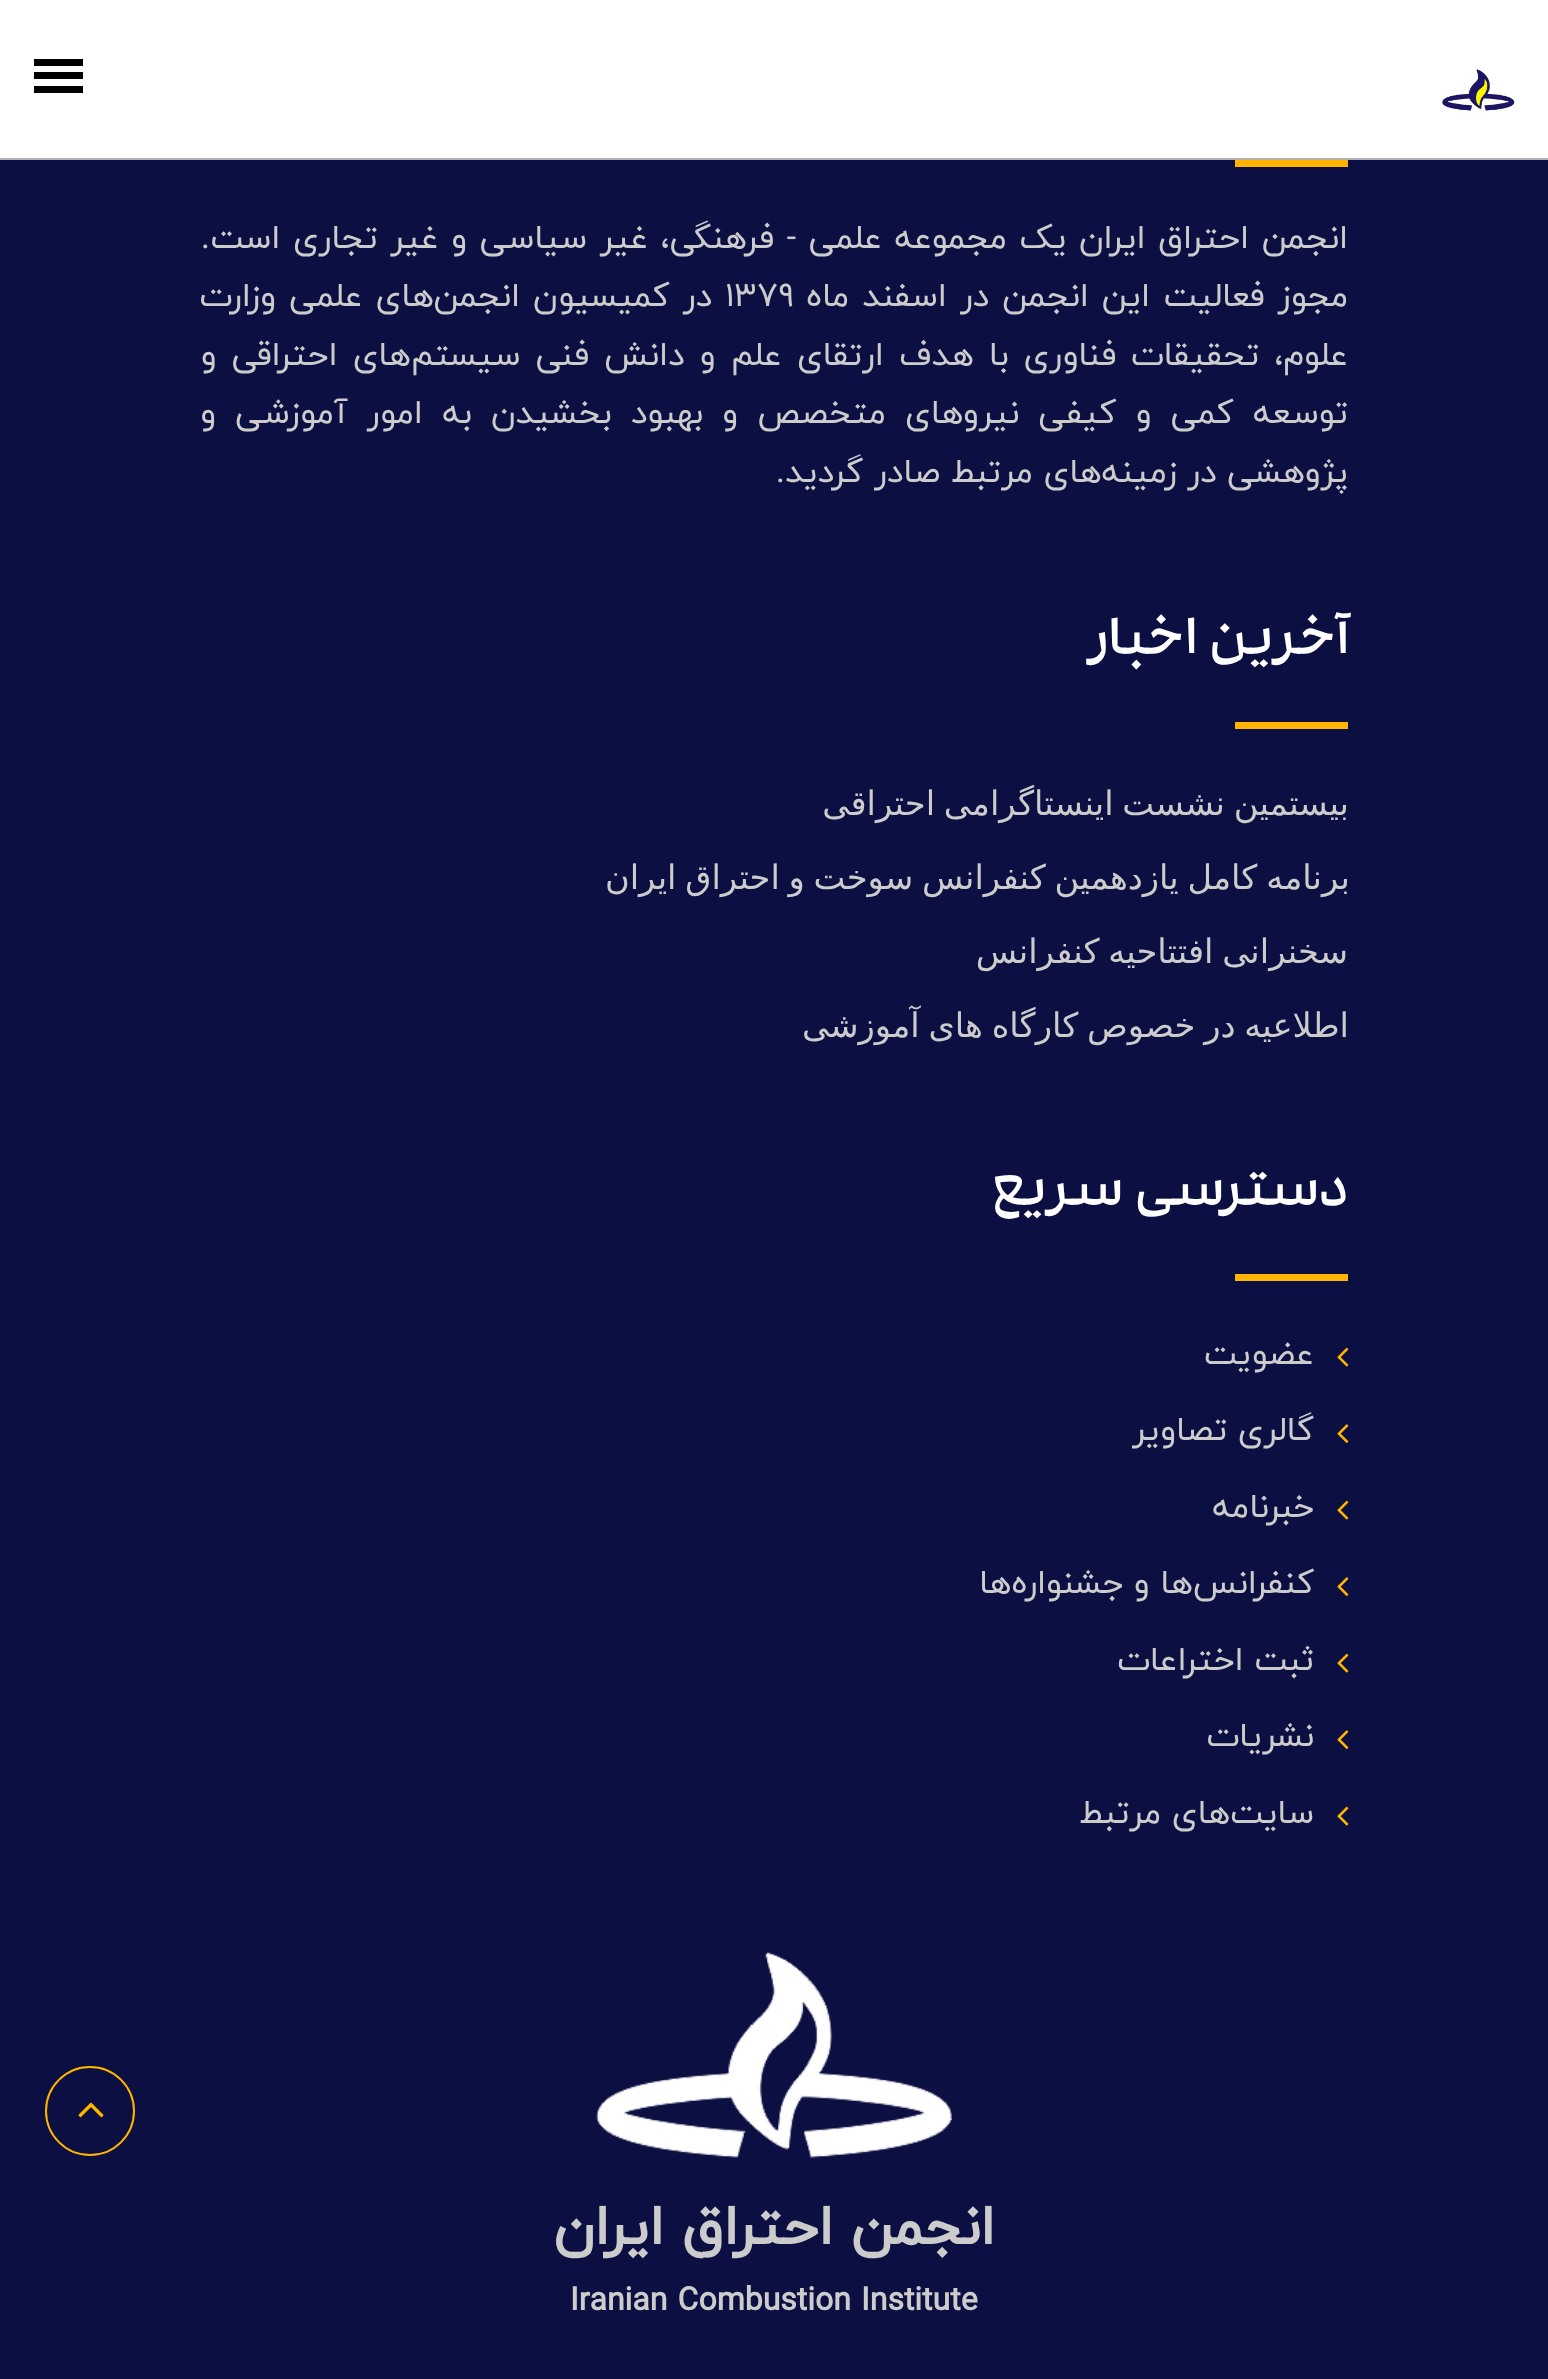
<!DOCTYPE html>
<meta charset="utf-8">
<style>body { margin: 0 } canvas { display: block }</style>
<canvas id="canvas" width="1548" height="2379"></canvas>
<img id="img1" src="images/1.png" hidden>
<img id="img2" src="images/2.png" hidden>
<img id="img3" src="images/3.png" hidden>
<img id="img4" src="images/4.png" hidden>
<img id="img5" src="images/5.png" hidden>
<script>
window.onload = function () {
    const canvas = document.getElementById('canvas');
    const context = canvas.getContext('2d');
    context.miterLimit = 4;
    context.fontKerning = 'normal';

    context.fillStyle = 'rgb(12, 15, 65)';
    context.fillRect(0, 0, 1548, 2379);
    context.fillStyle = 'rgb(178, 178, 178)';
    context.fillRect(0, 158, 1548, 2);
    context.fillStyle = 'rgb(255, 255, 255)';
    context.fillRect(0, 0, 1548, 158);
    context.drawImage(document.getElementById('img1'), 1442, 69, 73, 42);
    context.fillStyle = 'rgb(0, 0, 0)';
    context.fillRect(34, 59, 49, 7);
    context.fillRect(34, 72, 49, 7);
    context.fillRect(34, 86, 49, 7);
    context.fillStyle = 'rgb(255, 180, 0)';
    context.fillRect(1235, 160, 113, 7);
    context.fillRect(1235, 722, 113, 7);
    context.fillRect(1235, 1274, 113, 7);
    context.drawImage(document.getElementById('img2'), 1337, 1347, 12, 20);
    context.drawImage(document.getElementById('img3'), 1337, 1424, 12, 19);
    context.drawImage(document.getElementById('img2'), 1337, 1500, 12, 20);
    context.drawImage(document.getElementById('img3'), 1337, 1577, 12, 19);
    context.drawImage(document.getElementById('img2'), 1337, 1653, 12, 20);
    context.drawImage(document.getElementById('img3'), 1337, 1730, 12, 19);
    context.drawImage(document.getElementById('img2'), 1337, 1806, 12, 20);
    context.drawImage(document.getElementById('img4'), 596, 1952, 356, 206);
    context.beginPath();
    context.arc(90, 2111, 44, 0, 2 * Math.PI);
    context.strokeStyle = 'rgb(255, 180, 0)';
    context.lineWidth = 2;
    context.stroke();
    context.drawImage(document.getElementById('img5'), 78, 2102, 26, 16);
    context.wordSpacing = '2px';
    context.direction = 'rtl';
    context.font = '33.75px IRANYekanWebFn';
    context.fillStyle = 'rgb(204, 204, 204)';
    context.fillText('انجمن احتراق ایران یک مجموعه علمی - فرهنگی، غیر سیاسی و غیر تجاری است.', 1348, 248);
    context.wordSpacing = '2.5px';
    context.fillText('مجوز فعالیت این انجمن در اسفند ماه', 1348, 306);
    context.wordSpacing = '0px';
    context.direction = 'ltr';
    context.fillText('۱۳۷۹', 725, 306);
    context.wordSpacing = '2.5px';
    context.direction = 'rtl';
    context.fillText('در کمیسیون انجمن‌های علمی وزارت', 712, 306);
    context.wordSpacing = '4.5px';
    context.fillText('علوم، تحقیقات فناوری با هدف ارتقای علم و دانش فنی سیستم‌های احتراقی و', 1348, 365);
    context.wordSpacing = '8.6px';
    context.fillText('توسعه کمی و کیفی نیروهای متخصص و بهبود بخشیدن به امور آموزشی و', 1348, 423);
    context.wordSpacing = '0px';
    context.fillText('پژوهشی در زمینه‌های مرتبط صادر گردید.', 1348, 482);
    context.font = '54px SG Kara';
    context.fillStyle = 'rgb(255, 255, 255)';
    context.fillText('آخرین اخبار', 1348, 653);
    context.wordSpacing = '-2px';
    context.font = '33.75px DejaVu Sans';
    context.fillStyle = 'rgb(204, 204, 204)';
    context.fillText('بیستمین نشست اینستاگرامی احتراقی', 1349, 815);
    context.fillText('برنامه کامل یازدهمین کنفرانس سوخت و احتراق ایران', 1350, 889);
    context.fillText('سخنرانی افتتاحیه کنفرانس', 1348, 963);
    context.fillText('اطلاعیه در خصوص کارگاه های آموزشی', 1349, 1037);
    context.wordSpacing = '0px';
    context.font = '54px SG Kara';
    context.fillStyle = 'rgb(255, 255, 255)';
    context.fillText('دسترسی سریع', 1348, 1204);
    context.font = '33.75px IRANYekanWebFn';
    context.fillStyle = 'rgb(204, 204, 204)';
    context.fillText('عضویت', 1314, 1364);
    context.fillText('گالری تصاویر', 1314, 1440);
    context.fillText('خبرنامه', 1314, 1517);
    context.fillText('کنفرانس‌ها و جشنواره‌ها', 1314, 1593);
    context.fillText('ثبت اختراعات', 1314, 1670);
    context.fillText('نشریات', 1314, 1746);
    context.fillText('سایت‌های مرتبط', 1314, 1823);
    context.font = 'bold 56.25px IRANYekanWebFn';
    context.fillText('انجمن احتراق ایران', 995, 2244);
    context.direction = 'ltr';
    context.font = 'bold 32px IRANYekanWebFn';
    context.fillText('Iranian Combustion Institute', 570, 2310);
};
</script>
